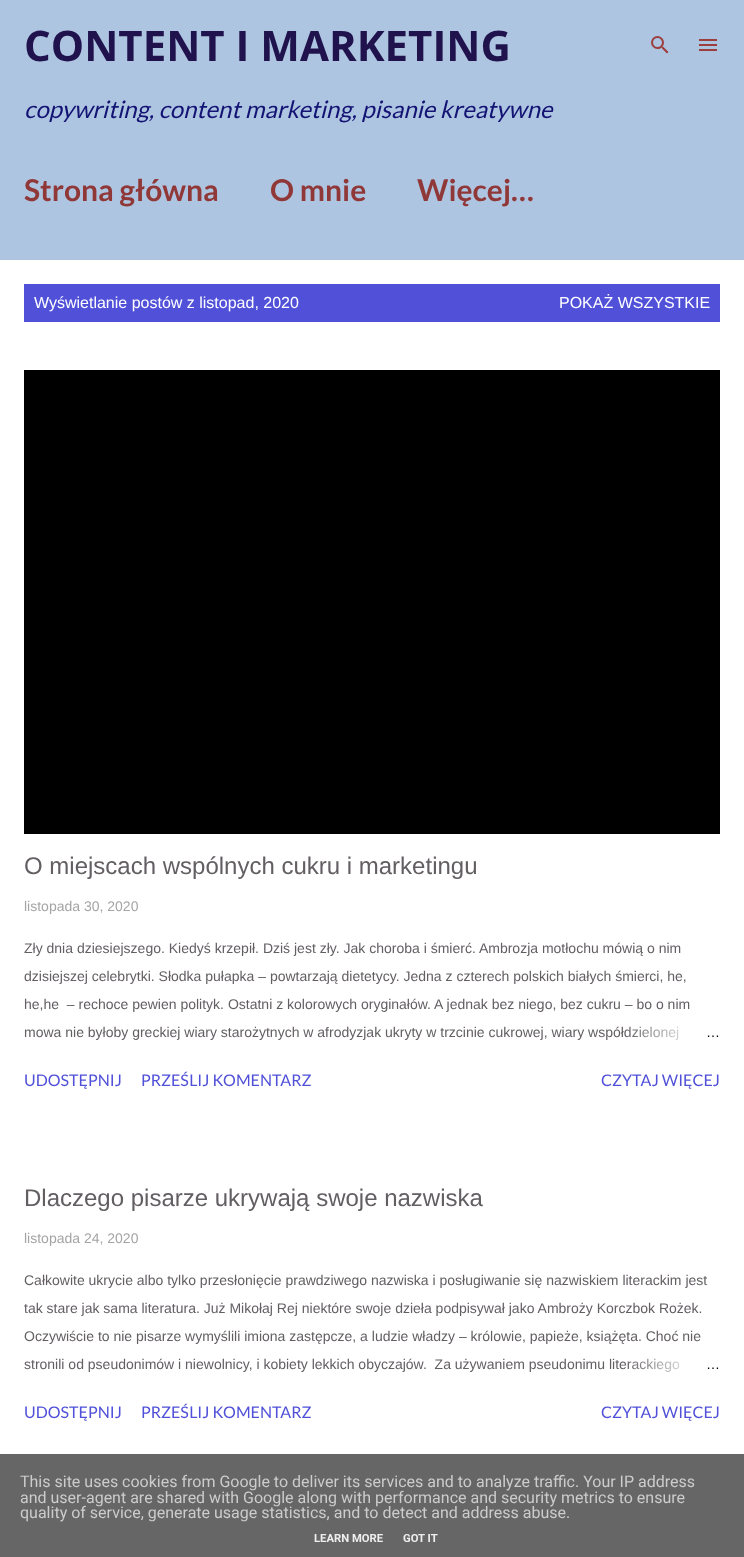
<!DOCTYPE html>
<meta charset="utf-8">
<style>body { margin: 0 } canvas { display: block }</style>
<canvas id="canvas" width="744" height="1557"></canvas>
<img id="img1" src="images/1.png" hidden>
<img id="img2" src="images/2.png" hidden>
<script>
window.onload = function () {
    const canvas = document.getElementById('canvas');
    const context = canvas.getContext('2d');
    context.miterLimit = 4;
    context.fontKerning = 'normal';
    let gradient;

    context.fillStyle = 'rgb(255, 255, 255)';
    context.fillRect(0, 0, 744, 1557);
    context.fillStyle = 'rgb(174, 197, 225)';
    context.fillRect(0, 0, 744, 260);
    context.drawImage(document.getElementById('img1'), 651, 36, 18, 18);
    context.drawImage(document.getElementById('img2'), 699, 39, 18, 12);
    context.fillStyle = 'rgb(80, 80, 217)';
    context.fillRect(24, 284, 696, 38);
    context.fillStyle = 'rgb(0, 0, 0)';
    context.fillRect(24, 370, 696, 464);
    context.fillStyle = 'rgb(102, 102, 102)';
    context.fillRect(0, 1454, 744, 103);
    context.font = 'bold 42px Open Sans';
    context.fillStyle = 'rgb(32, 18, 77)';
    context.fillText('CONTENT I MARKETING', 24, 61);
    context.font = 'italic 24px Lato';
    context.fillStyle = 'rgb(19, 19, 116)';
    context.fillText('copywriting, content marketing, pisanie kreatywne', 24, 118);
    context.font = 'bold 30px Lato';
    context.fillStyle = 'rgb(144, 56, 56)';
    context.fillText('Strona główna', 24, 201);
    context.fillText('O mnie', 270, 201);
    context.fillText('Więcej…', 417, 201);
    context.font = '16px Liberation Sans';
    context.fillStyle = 'rgb(255, 255, 255)';
    context.fillText('Wyświetlanie postów z listopad, 2020', 34, 308);
    context.fillText('POKAŻ WSZYSTKIE', 559, 308);
    context.font = '24px Liberation Sans';
    context.fillStyle = 'rgb(98, 94, 98)';
    context.fillText('O miejscach wspólnych cukru i marketingu', 24, 874);
    context.font = '14px Liberation Sans';
    context.fillStyle = 'rgb(164, 164, 164)';
    context.fillText('listopada 30, 2020', 24, 911);
    context.fillStyle = 'rgb(98, 94, 98)';
    context.fillText('Zły dnia dziesiejszego. Kiedyś krzepił. Dziś jest zły. Jak choroba i śmierć. Ambrozja motłochu mówią o nim', 24, 953);
    context.fillText('dzisiejszej celebrytki. Słodka pułapka – powtarzają dietetycy. Jedna z czterech polskich białych śmierci, he,', 24, 981);
    context.fillText('he,he  – rechoce pewien polityk. Ostatni z kolorowych oryginałów. A jednak bez niego, bez cukru – bo o nim', 24, 1009);
    context.fillText('mowa nie byłoby greckiej wiary starożytnych w afrodyzjak ukryty w trzcinie cukrowej, wiary współdzielonej', 24, 1037);
    gradient = context.createLinearGradient(720, 1032, 624, 1032);
    gradient.addColorStop(0, 'rgb(255, 255, 255)');
    gradient.addColorStop(0.2, 'rgb(255, 255, 255)');
    gradient.addColorStop(1, 'rgba(255, 255, 255, 0)');
    context.fillStyle = gradient;
    context.fillRect(626, 1026, 53, 14);
    context.fillStyle = 'rgb(0, 0, 0)';
    context.fillText('…', 706, 1037);
    context.font = '16px Lato';
    context.fillStyle = 'rgb(80, 80, 217)';
    context.fillText('UDOSTĘPNIJ', 24, 1086);
    context.fillText('PRZEŚLIJ KOMENTARZ', 141, 1086);
    context.fillText('CZYTAJ WIĘCEJ', 601, 1086);
    context.font = '24px Liberation Sans';
    context.fillStyle = 'rgb(98, 94, 98)';
    context.fillText('Dlaczego pisarze ukrywają swoje nazwiska', 24, 1206);
    context.font = '14px Liberation Sans';
    context.fillStyle = 'rgb(164, 164, 164)';
    context.fillText('listopada 24, 2020', 24, 1243);
    context.fillStyle = 'rgb(98, 94, 98)';
    context.fillText('Całkowite ukrycie albo tylko przesłonięcie prawdziwego nazwiska i posługiwanie się nazwiskiem literackim jest', 24, 1285);
    context.fillText('tak stare jak sama literatura. Już Mikołaj Rej niektóre swoje dzieła podpisywał jako Ambroży Korczbok Rożek.', 24, 1313);
    context.fillText('Oczywiście to nie pisarze wymyślili imiona zastępcze, a ludzie władzy – królowie, papieże, książęta. Choć nie', 24, 1341);
    context.fillText('stronili od pseudonimów i niewolnicy, i kobiety lekkich obyczajów.  Za używaniem pseudonimu literackiego', 24, 1369);
    gradient = context.createLinearGradient(720, 1364, 624, 1364);
    gradient.addColorStop(0, 'rgb(255, 255, 255)');
    gradient.addColorStop(0.2, 'rgb(255, 255, 255)');
    gradient.addColorStop(1, 'rgba(255, 255, 255, 0)');
    context.fillStyle = gradient;
    context.fillRect(628, 1358, 52, 14);
    context.fillStyle = 'rgb(0, 0, 0)';
    context.fillText('…', 706, 1369);
    context.font = '16px Lato';
    context.fillStyle = 'rgb(80, 80, 217)';
    context.fillText('UDOSTĘPNIJ', 24, 1418);
    context.fillText('PRZEŚLIJ KOMENTARZ', 141, 1418);
    context.fillText('CZYTAJ WIĘCEJ', 601, 1418);
    context.font = '16px Roboto';
    context.fillStyle = 'rgb(204, 204, 204)';
    context.fillText('This site uses cookies from Google to deliver its services and to analyze traffic. Your IP address', 20, 1487);
    context.fillText('and user-agent are shared with Google along with performance and security metrics to ensure', 20, 1503);
    context.fillText('quality of service, generate usage statistics, and to detect and address abuse.', 20, 1518);
    context.font = 'bold 11.25px Roboto';
    context.fillStyle = 'rgb(238, 238, 238)';
    context.fillText('LEARN MORE', 314, 1542);
    context.fillText('GOT IT', 403, 1542);
};
</script>
